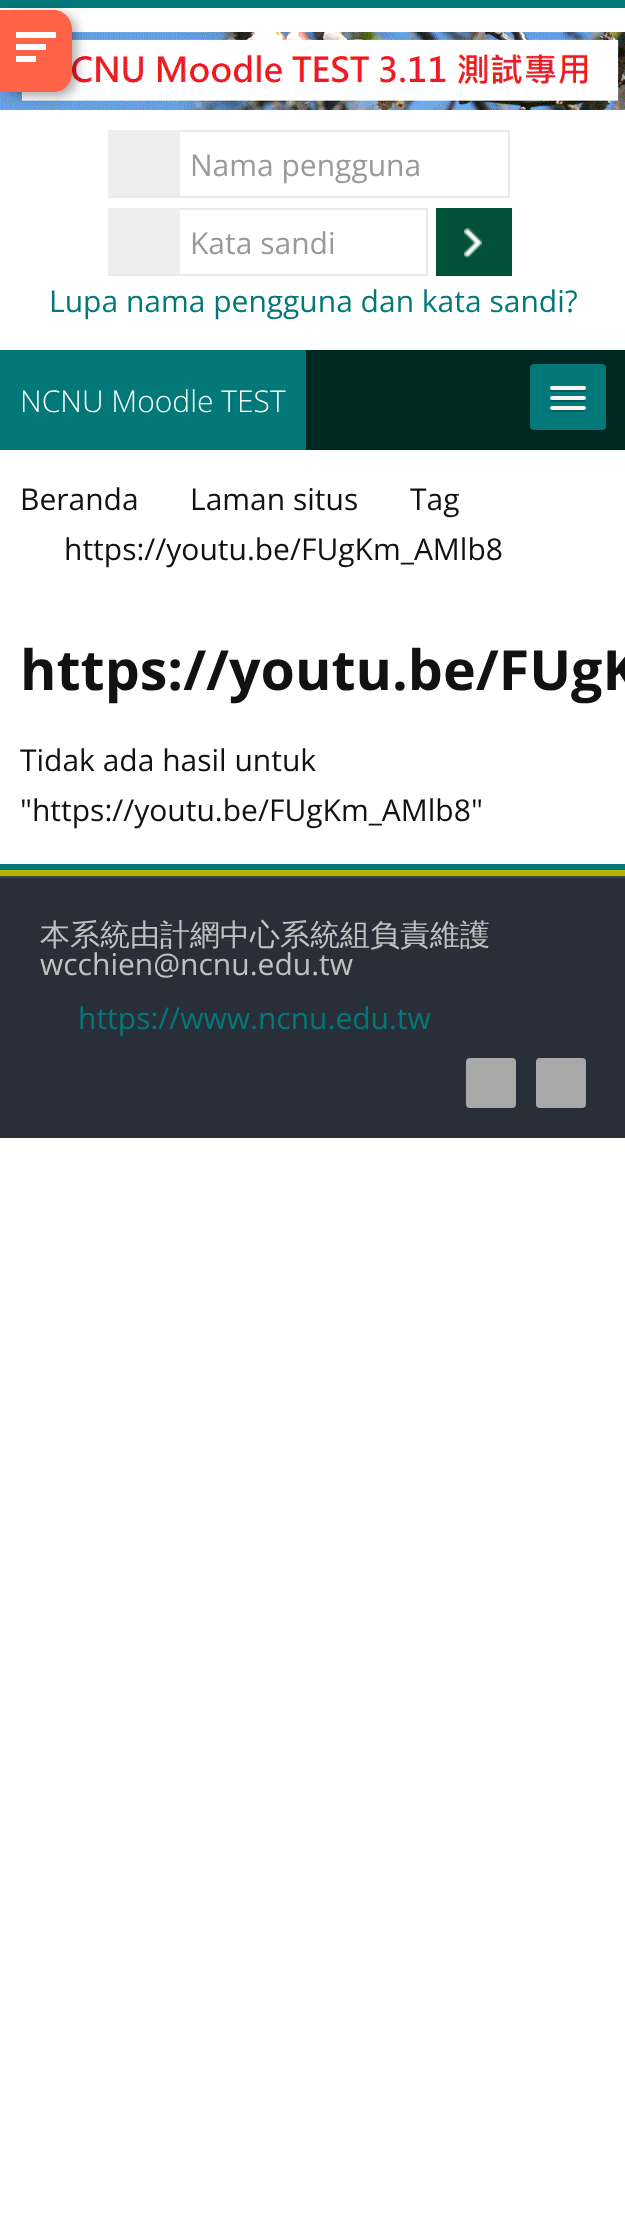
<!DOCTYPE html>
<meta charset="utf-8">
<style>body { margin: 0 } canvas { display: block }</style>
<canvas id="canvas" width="625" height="2233"></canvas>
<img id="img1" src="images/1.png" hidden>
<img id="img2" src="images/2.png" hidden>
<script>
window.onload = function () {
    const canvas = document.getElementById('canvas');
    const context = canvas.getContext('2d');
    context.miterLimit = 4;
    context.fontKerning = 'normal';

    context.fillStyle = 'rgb(255, 255, 255)';
    context.fillRect(0, 0, 625, 2233);
    context.fillStyle = 'rgb(2, 120, 120)';
    context.fillRect(0, 0, 625, 8);
    context.drawImage(document.getElementById('img1'), 0, 32, 625, 78);
    context.fillStyle = 'rgba(0, 0, 0, 0.35)';
    context.filter = 'blur(6px)';
    context.beginPath();
    context.roundRect(4, 14, 72, 82, 18);
    context.fill();
    context.filter = 'none';
    context.fillStyle = 'rgb(255, 99, 71)';
    context.beginPath();
    context.moveTo(0, 10);
    context.lineTo(54, 10);
    context.bezierCurveTo(64, 10, 72, 19, 72, 30);
    context.lineTo(72, 72);
    context.bezierCurveTo(72, 83, 64, 92, 54, 92);
    context.lineTo(0, 92);
    context.closePath();
    context.fill();
    context.fillStyle = 'rgb(255, 255, 255)';
    context.fillRect(16, 32, 40, 6);
    context.fillRect(16, 44, 30, 6);
    context.fillRect(16, 56, 20, 6);
    context.strokeStyle = 'rgb(233, 233, 233)';
    context.lineWidth = 2;
    context.strokeRect(109, 131, 400, 66);
    context.fillStyle = 'rgb(238, 238, 238)';
    context.fillRect(108, 130, 72, 66);
    context.strokeRect(109, 209, 318, 66);
    context.fillRect(108, 208, 72, 66);
    context.fillStyle = 'rgb(1, 80, 56)';
    context.fillRect(436, 208, 76, 68);
    context.drawImage(document.getElementById('img2'), 464, 228, 18, 30);
    context.fillStyle = 'rgb(0, 40, 35)';
    context.fillRect(306, 350, 319, 100);
    context.fillStyle = 'rgb(2, 120, 120)';
    context.fillRect(0, 350, 306, 100);
    context.beginPath();
    context.roundRect(530, 364, 76, 66, 4);
    context.fill();
    context.fillStyle = 'rgb(2, 90, 90)';
    context.beginPath();
    context.moveTo(550.5, 389);
    context.bezierCurveTo(548, 393, 557, 392, 557.5, 392);
    context.lineTo(578.5, 392);
    context.bezierCurveTo(579, 392, 588, 393, 585.5, 389);
    context.bezierCurveTo(585.5, 389.5, 584.5, 390, 584, 390);
    context.lineTo(552, 390);
    context.bezierCurveTo(551.5, 390, 550.5, 389.5, 550.5, 389);
    context.closePath();
    context.fill();
    context.fillStyle = 'rgb(245, 245, 245)';
    context.beginPath();
    context.roundRect(550, 386, 36, 4, 2);
    context.fill();
    context.fillStyle = 'rgb(2, 90, 90)';
    context.beginPath();
    context.moveTo(550.5, 399);
    context.bezierCurveTo(548, 403, 557, 402, 557.5, 402);
    context.lineTo(578.5, 402);
    context.bezierCurveTo(579, 402, 588, 403, 585.5, 399);
    context.bezierCurveTo(585.5, 399.5, 584.5, 400, 584, 400);
    context.lineTo(552, 400);
    context.bezierCurveTo(551.5, 400, 550.5, 399.5, 550.5, 399);
    context.closePath();
    context.fill();
    context.fillStyle = 'rgb(245, 245, 245)';
    context.beginPath();
    context.roundRect(550, 396, 36, 4, 2);
    context.fill();
    context.fillStyle = 'rgb(2, 90, 90)';
    context.beginPath();
    context.moveTo(550.5, 409);
    context.bezierCurveTo(548, 413, 557, 412, 557.5, 412);
    context.lineTo(578.5, 412);
    context.bezierCurveTo(579, 412, 588, 413, 585.5, 409);
    context.bezierCurveTo(585.5, 409.5, 584.5, 410, 584, 410);
    context.lineTo(552, 410);
    context.bezierCurveTo(551.5, 410, 550.5, 409.5, 550.5, 409);
    context.closePath();
    context.fill();
    context.fillStyle = 'rgb(245, 245, 245)';
    context.beginPath();
    context.roundRect(550, 406, 36, 4, 2);
    context.fill();
    context.fillStyle = 'rgb(183, 180, 0)';
    context.fillRect(0, 870, 625, 6);
    context.fillStyle = 'rgb(2, 120, 120)';
    context.fillRect(0, 864, 625, 6);
    context.fillStyle = 'rgb(41, 47, 56)';
    context.fillRect(0, 878, 625, 260);
    context.fillStyle = 'rgb(65, 70, 78)';
    context.fillRect(0, 876, 625, 2);
    context.fillStyle = 'rgb(169, 169, 169)';
    context.beginPath();
    context.roundRect(466, 1058, 50, 50, 4);
    context.fill();
    context.beginPath();
    context.roundRect(536, 1058, 50, 50, 4);
    context.fill();
    context.font = '30px Open Sans';
    context.fillStyle = 'rgb(153, 153, 153)';
    context.fillText('Nama pengguna', 190, 176);
    context.fillText('Kata sandi', 190, 254);
    context.fillStyle = 'rgb(2, 120, 120)';
    context.fillText('Lupa nama pengguna dan kata sandi?', 49, 312);
    context.font = '300 30px Open Sans';
    context.fillStyle = 'rgb(255, 255, 255)';
    context.fillText('NCNU Moodle TEST', 20, 412);
    context.font = '30px Open Sans';
    context.fillStyle = 'rgb(17, 17, 17)';
    context.fillText('Beranda', 20, 510);
    context.fillText('Laman situs', 190, 510);
    context.fillText('Tag', 410, 510);
    context.fillText('https://youtu.be/FUgKm_AMlb8', 64, 560);
    context.font = 'bold 55.5px Open Sans';
    context.fillText('https://youtu.be/FUgK', 20, 690);
    context.font = '30px Open Sans';
    context.fillText('Tidak ada hasil untuk', 20, 771);
    context.fillText('"https://youtu.be/FUgKm_AMlb8"', 20, 821);
    context.font = '500 30px WenQuanYi Zen Hei';
    context.fillStyle = 'rgb(189, 195, 194)';
    context.fillText('本系統由計網中心系統組負責維護', 40, 945);
    context.font = '30px Open Sans';
    context.fillText('wcchien@ncnu.edu.tw', 40, 975);
    context.fillStyle = 'rgb(2, 120, 120)';
    context.fillText('https://www.ncnu.edu.tw', 78, 1029);
};
</script>
